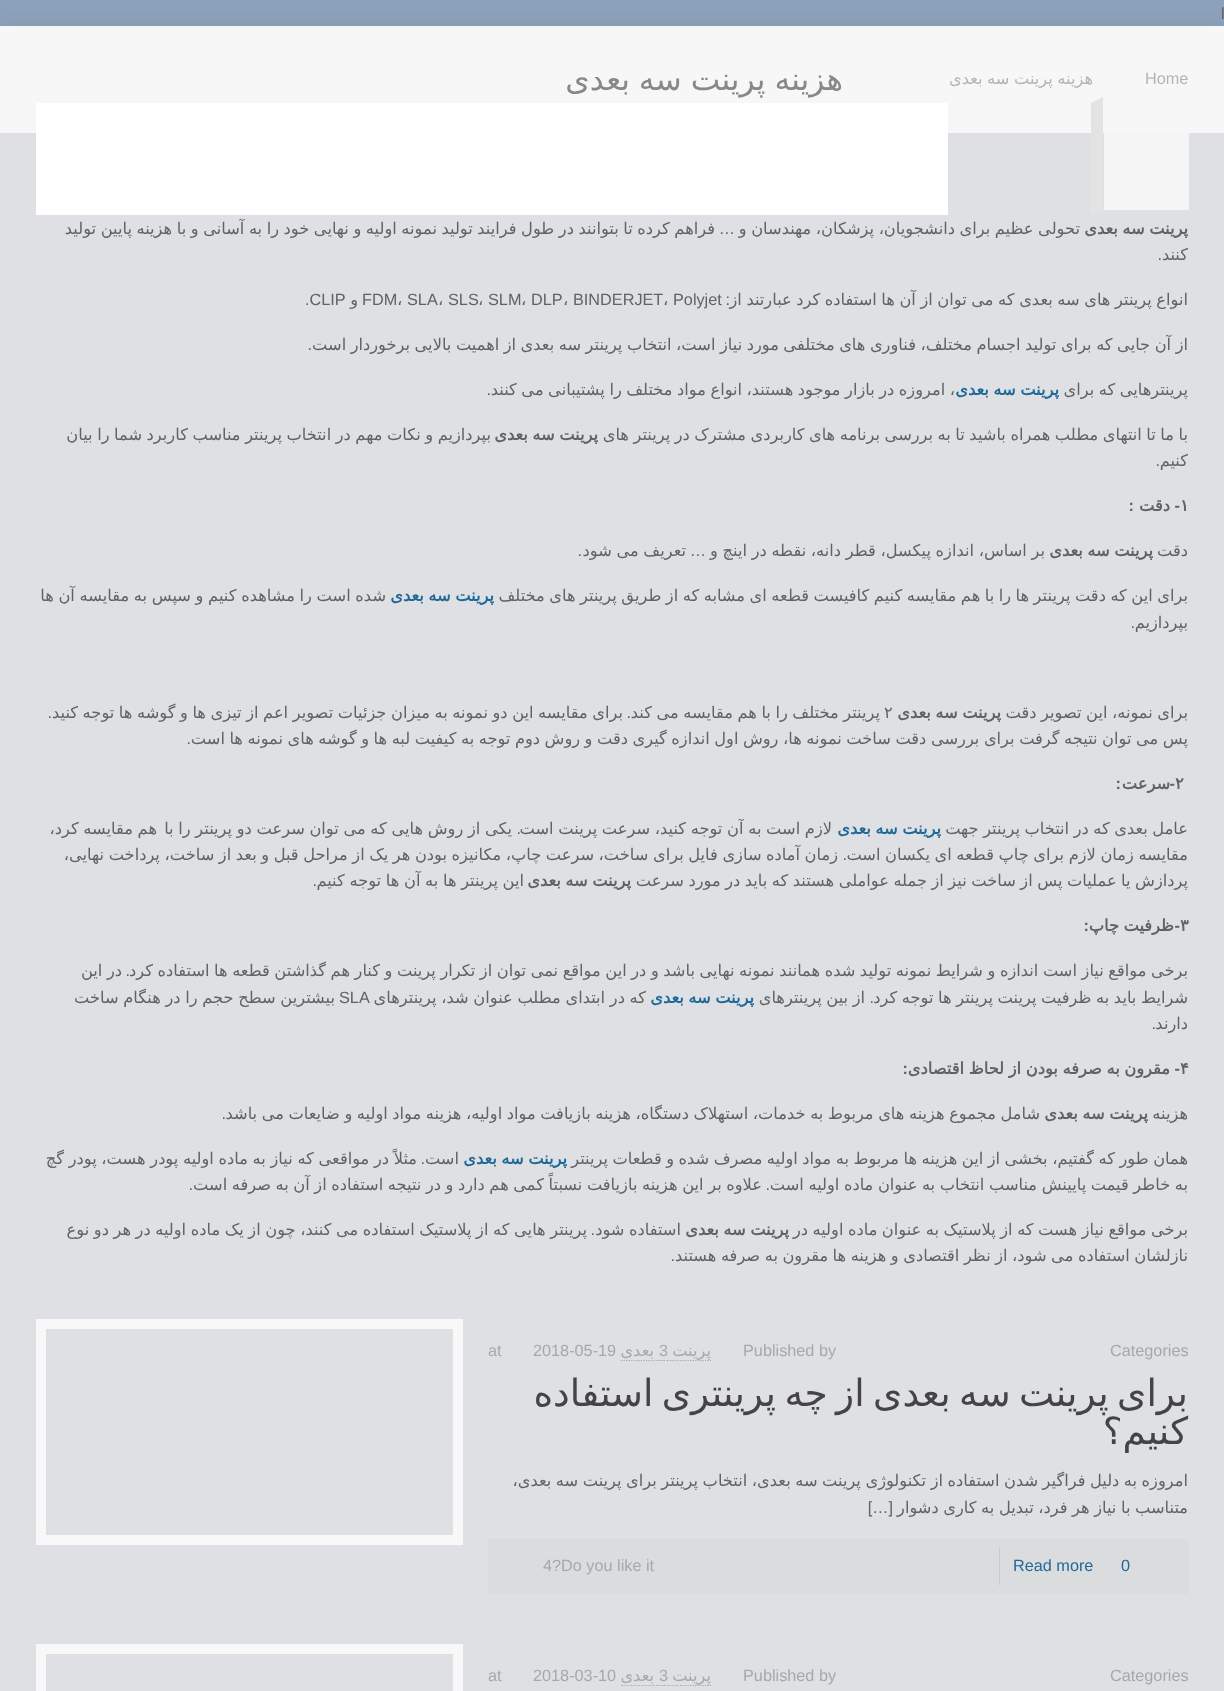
<!DOCTYPE html>
<meta charset="utf-8">
<style>body { margin: 0 } canvas { display: block }</style>
<canvas id="canvas" width="1224" height="1691"></canvas>
<script>
window.onload = function () {
    const canvas = document.getElementById('canvas');
    const context = canvas.getContext('2d');
    context.miterLimit = 4;
    context.fontKerning = 'normal';

    context.fillStyle = 'rgb(140, 162, 186)';
    context.fillRect(0, 0, 1224, 1691);
    context.fillStyle = 'rgba(0, 0, 0, 0.06)';
    context.filter = 'blur(9.5px)';
    context.beginPath();
    context.rect(0, 26, 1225, 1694);
    context.fill();
    context.filter = 'none';
    context.fillStyle = 'rgb(222, 224, 227)';
    context.fillRect(0, 133, 1224, 1558);
    context.fillStyle = 'rgb(247, 247, 247)';
    context.fillRect(0, 26, 1224, 107);
    context.fillStyle = 'rgb(245, 245, 245)';
    context.fillRect(1104, 133, 85, 77);
    context.fillStyle = 'rgb(227, 227, 227)';
    context.beginPath();
    context.moveTo(1091, 103);
    context.lineTo(1103, 97);
    context.lineTo(1103, 210);
    context.lineTo(1091, 215);
    context.closePath();
    context.fill();
    context.fillStyle = 'rgb(255, 255, 255)';
    context.fillRect(36, 103, 912, 112);
    context.beginPath();
    context.moveTo(659, 1360.5);
    context.lineTo(660, 1360.5);
    context.moveTo(661, 1360.5);
    context.lineTo(662.5, 1360.5);
    context.moveTo(663.5, 1360.5);
    context.lineTo(665, 1360.5);
    context.moveTo(666.5, 1360.5);
    context.lineTo(667.5, 1360.5);
    context.strokeStyle = 'rgb(168, 168, 168)';
    context.lineWidth = 1.2;
    context.stroke();
    context.beginPath();
    context.moveTo(667.5, 1360.5);
    context.lineTo(711, 1360.5);
    context.setLineDash([1.25, 1.25]);
    context.stroke();
    context.beginPath();
    context.moveTo(621, 1360.5);
    context.lineTo(659, 1360.5);
    context.stroke();
    context.fillStyle = 'rgb(218, 220, 222)';
    context.fillRect(488, 1539, 701, 55);
    context.fillStyle = 'rgb(201, 202, 204)';
    context.fillRect(999, 1548, 1, 37);
    context.strokeStyle = 'rgb(248, 248, 248)';
    context.lineWidth = 10;
    context.setLineDash([]);
    context.strokeRect(41, 1324, 417, 216);
    context.beginPath();
    context.moveTo(659, 1685.5);
    context.lineTo(660, 1685.5);
    context.moveTo(661, 1685.5);
    context.lineTo(662.5, 1685.5);
    context.moveTo(663.5, 1685.5);
    context.lineTo(665, 1685.5);
    context.moveTo(666.5, 1685.5);
    context.lineTo(667.5, 1685.5);
    context.strokeStyle = 'rgb(168, 168, 168)';
    context.lineWidth = 1.2;
    context.stroke();
    context.beginPath();
    context.moveTo(667.5, 1685.5);
    context.lineTo(711, 1685.5);
    context.setLineDash([1.25, 1.25]);
    context.stroke();
    context.beginPath();
    context.moveTo(621, 1685.5);
    context.lineTo(659, 1685.5);
    context.stroke();
    context.strokeStyle = 'rgb(248, 248, 248)';
    context.lineWidth = 10;
    context.setLineDash([]);
    context.strokeRect(41, 1649, 417, 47);
    context.font = '16.25px Liberation Sans';
    context.fillStyle = 'rgb(98, 98, 98)';
    context.fillText('l', 1221, 19);
    context.fillStyle = 'rgb(180, 180, 180)';
    context.fillText('Home', 1145, 84);
    context.wordSpacing = '-0.65px';
    context.direction = 'rtl';
    context.font = '16.25px DejaVu Sans';
    context.fillText('هزینه پرینت سه بعدی', 1093, 84);
    context.wordSpacing = '-1px';
    context.font = '31.25px DejaVu Sans';
    context.fillStyle = 'rgb(136, 136, 136)';
    context.fillText('هزینه پرینت سه بعدی', 843, 90);
    context.wordSpacing = '-0.65px';
    context.font = 'bold 16.25px DejaVu Sans';
    context.fillStyle = 'rgb(98, 98, 98)';
    context.fillText('پرینت سه بعدی', 1188, 234);
    context.wordSpacing = '-0.6px';
    context.font = '16.25px DejaVu Sans';
    context.fillText('تحولی عظیم برای دانشجویان، پزشکان، مهندسان و', 1080, 234);
    context.wordSpacing = '0px';
    context.font = '16.25px Liberation Sans';
    context.fillText('…', 735, 234);
    context.wordSpacing = '-0.6px';
    context.font = '16.25px DejaVu Sans';
    context.fillText('فراهم کرده تا بتوانند در طول فرایند تولید نمونه اولیه و نهایی خود را به آسانی و با هزینه پایین تولید', 715, 234);
    context.wordSpacing = '0px';
    context.fillText('کنند', 1188, 260);
    context.font = '16.25px Liberation Sans';
    context.fillText('.', 1162, 260);
    context.wordSpacing = '-0.6px';
    context.font = '16.25px DejaVu Sans';
    context.fillText('انواع پرینتر های سه بعدی که می توان از آن ها استفاده کرد عبارتند از', 1188, 305);
    context.wordSpacing = '0px';
    context.font = '16.25px Liberation Sans';
    context.fillText(':', 730, 305);
    context.direction = 'ltr';
    context.fillText('Polyjet', 673, 305);
    context.font = '16.25px DejaVu Sans';
    context.fillText('،', 663, 305);
    context.font = '16.25px Liberation Sans';
    context.fillText('BINDERJET', 573, 305);
    context.font = '16.25px DejaVu Sans';
    context.fillText('،', 563, 305);
    context.font = '16.25px Liberation Sans';
    context.fillText('DLP', 531, 305);
    context.font = '16.25px DejaVu Sans';
    context.fillText('،', 521, 305);
    context.font = '16.25px Liberation Sans';
    context.fillText('SLM', 488, 305);
    context.font = '16.25px DejaVu Sans';
    context.fillText('،', 478, 305);
    context.font = '16.25px Liberation Sans';
    context.fillText('SLS', 448, 305);
    context.font = '16.25px DejaVu Sans';
    context.fillText('،', 438, 305);
    context.font = '16.25px Liberation Sans';
    context.fillText('SLA', 407, 305);
    context.font = '16.25px DejaVu Sans';
    context.fillText('،', 397, 305);
    context.font = '16.25px Liberation Sans';
    context.fillText('FDM', 362, 305);
    context.direction = 'rtl';
    context.font = '16.25px DejaVu Sans';
    context.fillText('و', 358, 305);
    context.direction = 'ltr';
    context.font = '16.25px Liberation Sans';
    context.fillText('.CLIP', 305, 305);
    context.wordSpacing = '-0.65px';
    context.direction = 'rtl';
    context.font = '16.25px DejaVu Sans';
    context.fillText('از آن جایی که برای تولید اجسام مختلف، فناوری های مختلفی مورد نیاز است، انتخاب پرینتر سه بعدی از اهمیت بالایی برخوردار است', 1188, 350);
    context.wordSpacing = '0px';
    context.font = '16.25px Liberation Sans';
    context.fillText('.', 312, 350);
    context.wordSpacing = '-0.65px';
    context.font = '16.25px DejaVu Sans';
    context.fillText('پرینترهایی که برای', 1188, 395);
    context.font = 'bold 16.25px DejaVu Sans';
    context.fillStyle = 'rgb(31, 104, 152)';
    context.fillText('پرینت سه بعدی', 1059, 395);
    context.font = '16.25px DejaVu Sans';
    context.fillStyle = 'rgb(98, 98, 98)';
    context.fillText('، امروزه در بازار موجود هستند، انواع مواد مختلف را پشتیبانی می کنند', 955, 395);
    context.wordSpacing = '0px';
    context.font = '16.25px Liberation Sans';
    context.fillText('.', 491, 395);
    context.wordSpacing = '-0.65px';
    context.font = '16.25px DejaVu Sans';
    context.fillText('با ما تا انتهای مطلب همراه باشید تا به بررسی برنامه های کاربردی مشترک در پرینتر های', 1188, 440);
    context.font = 'bold 16.25px DejaVu Sans';
    context.fillText('پرینت سه بعدی', 598, 440);
    context.wordSpacing = '-0.6px';
    context.font = '16.25px DejaVu Sans';
    context.fillText('بپردازیم و نکات مهم در انتخاب پرینتر مناسب کاربرد شما را بیان', 491, 440);
    context.wordSpacing = '0px';
    context.fillText('کنیم', 1188, 466);
    context.font = '16.25px Liberation Sans';
    context.fillText('.', 1160, 466);
    context.direction = 'ltr';
    context.font = 'bold 16.25px DejaVu Sans';
    context.fillText('۱', 1180, 511);
    context.direction = 'rtl';
    context.font = 'bold 16.25px Liberation Sans';
    context.fillText('-', 1180, 511);
    context.font = 'bold 16.25px DejaVu Sans';
    context.fillText('دقت', 1170, 511);
    context.font = 'bold 16.25px Liberation Sans';
    context.fillText(':', 1134, 511);
    context.font = '16.25px DejaVu Sans';
    context.fillText('دقت', 1188, 556);
    context.wordSpacing = '-0.65px';
    context.font = 'bold 16.25px DejaVu Sans';
    context.fillText('پرینت سه بعدی', 1153, 556);
    context.wordSpacing = '-0.5px';
    context.font = '16.25px DejaVu Sans';
    context.fillText('بر اساس، اندازه پیکسل، قطر دانه، نقطه در اینچ و', 1045, 556);
    context.wordSpacing = '0px';
    context.font = '16.25px Liberation Sans';
    context.fillText('…', 706, 556);
    context.wordSpacing = '-0.5px';
    context.font = '16.25px DejaVu Sans';
    context.fillText('تعریف می شود', 686, 556);
    context.wordSpacing = '0px';
    context.font = '16.25px Liberation Sans';
    context.fillText('.', 582, 556);
    context.wordSpacing = '-0.65px';
    context.font = '16.25px DejaVu Sans';
    context.fillText('برای این که دقت پرینتر ها را با هم مقایسه کنیم کافیست قطعه ای مشابه که از طریق پرینتر های مختلف', 1188, 601);
    context.font = 'bold 16.25px DejaVu Sans';
    context.fillStyle = 'rgb(31, 104, 152)';
    context.fillText('پرینت سه بعدی', 494, 601);
    context.wordSpacing = '-0.5px';
    context.font = '16.25px DejaVu Sans';
    context.fillStyle = 'rgb(98, 98, 98)';
    context.fillText('شده است را مشاهده کنیم و سپس به مقایسه آن ها', 386, 601);
    context.wordSpacing = '0px';
    context.fillText('بپردازیم', 1188, 628);
    context.font = '16.25px Liberation Sans';
    context.fillText('.', 1135, 628);
    context.wordSpacing = '-0.65px';
    context.font = '16.25px DejaVu Sans';
    context.fillText('برای نمونه، این تصویر دقت', 1188, 718);
    context.font = 'bold 16.25px DejaVu Sans';
    context.fillText('پرینت سه بعدی', 1001, 718);
    context.wordSpacing = '0px';
    context.direction = 'ltr';
    context.font = '16.25px DejaVu Sans';
    context.fillText('۲', 884, 718);
    context.wordSpacing = '-0.6px';
    context.direction = 'rtl';
    context.fillText('پرینتر مختلف را با هم مقایسه می کند', 880, 718);
    context.wordSpacing = '0px';
    context.font = '16.25px Liberation Sans';
    context.fillText('.', 631, 718);
    context.wordSpacing = '-0.6px';
    context.font = '16.25px DejaVu Sans';
    context.fillText('برای مقایسه این دو نمونه به میزان جزئیات تصویر اعم از تیزی ها و گوشه ها توجه کنید', 623, 718);
    context.wordSpacing = '0px';
    context.font = '16.25px Liberation Sans';
    context.fillText('.', 52, 718);
    context.wordSpacing = '-0.65px';
    context.font = '16.25px DejaVu Sans';
    context.fillText('پس می توان نتیجه گرفت برای بررسی دقت ساخت نمونه ها، روش اول اندازه گیری دقت و روش دوم توجه به کیفیت لبه ها و گوشه های نمونه ها است', 1188, 744);
    context.wordSpacing = '0px';
    context.font = '16.25px Liberation Sans';
    context.fillText('.', 191, 744);
    context.direction = 'ltr';
    context.font = 'bold 16.25px DejaVu Sans';
    context.fillText('۲', 1175, 789);
    context.direction = 'rtl';
    context.font = 'bold 16.25px Liberation Sans';
    context.fillText('-', 1175, 789);
    context.font = 'bold 16.25px DejaVu Sans';
    context.fillText('سرعت', 1170, 789);
    context.font = 'bold 16.25px Liberation Sans';
    context.fillText(':', 1121, 789);
    context.wordSpacing = '-0.65px';
    context.font = '16.25px DejaVu Sans';
    context.fillText('عامل بعدی که در انتخاب پرینتر جهت', 1188, 834);
    context.font = 'bold 16.25px DejaVu Sans';
    context.fillStyle = 'rgb(31, 104, 152)';
    context.fillText('پرینت سه بعدی', 941, 834);
    context.wordSpacing = '-0.5px';
    context.font = '16.25px DejaVu Sans';
    context.fillStyle = 'rgb(98, 98, 98)';
    context.fillText('لازم است به آن توجه کنید، سرعت پرینت است', 832, 834);
    context.wordSpacing = '0px';
    context.font = '16.25px Liberation Sans';
    context.fillText('.', 521, 834);
    context.wordSpacing = '-0.5px';
    context.font = '16.25px DejaVu Sans';
    context.fillText('یکی از روش هایی که می توان سرعت دو پرینتر را با', 512, 834);
    context.fillText('هم مقایسه کرد،', 157, 834);
    context.wordSpacing = '-0.6px';
    context.fillText('مقایسه زمان لازم برای چاپ قطعه ای یکسان است', 1188, 860);
    context.wordSpacing = '0px';
    context.font = '16.25px Liberation Sans';
    context.fillText('.', 847, 860);
    context.wordSpacing = '-0.6px';
    context.font = '16.25px DejaVu Sans';
    context.fillText('زمان آماده سازی فایل برای ساخت، سرعت چاپ، مکانیزه بودن هر یک از مراحل قبل و بعد از ساخت، پرداخت نهایی،', 838, 860);
    context.wordSpacing = '-0.65px';
    context.fillText('پردازش یا عملیات پس از ساخت نیز از جمله عواملی هستند که باید در مورد سرعت', 1188, 886);
    context.font = 'bold 16.25px DejaVu Sans';
    context.fillText('پرینت سه بعدی', 631, 886);
    context.wordSpacing = '-0.5px';
    context.font = '16.25px DejaVu Sans';
    context.fillText('این پرینتر ها به آن ها توجه کنیم', 524, 886);
    context.wordSpacing = '0px';
    context.font = '16.25px Liberation Sans';
    context.fillText('.', 317, 886);
    context.direction = 'ltr';
    context.font = 'bold 16.25px DejaVu Sans';
    context.fillText('۳', 1180, 931);
    context.direction = 'rtl';
    context.font = 'bold 16.25px Liberation Sans';
    context.fillText('-', 1180, 931);
    context.wordSpacing = '-0.65px';
    context.font = 'bold 16.25px DejaVu Sans';
    context.fillText('ظرفیت چاپ', 1174, 931);
    context.wordSpacing = '0px';
    context.font = 'bold 16.25px Liberation Sans';
    context.fillText(':', 1089, 931);
    context.wordSpacing = '-0.6px';
    context.font = '16.25px DejaVu Sans';
    context.fillText('برخی مواقع نیاز است اندازه و شرایط نمونه تولید شده همانند نمونه نهایی باشد و در این مواقع نمی توان از تکرار پرینت و کنار هم گذاشتن قطعه ها استفاده کرد', 1188, 976);
    context.wordSpacing = '0px';
    context.font = '16.25px Liberation Sans';
    context.fillText('.', 130, 976);
    context.wordSpacing = '-0.6px';
    context.font = '16.25px DejaVu Sans';
    context.fillText('در این', 122, 976);
    context.fillText('شرایط باید به ظرفیت پرینت پرینتر ها توجه کرد', 1188, 1003);
    context.wordSpacing = '0px';
    context.font = '16.25px Liberation Sans';
    context.fillText('.', 874, 1003);
    context.wordSpacing = '-0.6px';
    context.font = '16.25px DejaVu Sans';
    context.fillText('از بین پرینترهای', 865, 1003);
    context.wordSpacing = '-0.65px';
    context.font = 'bold 16.25px DejaVu Sans';
    context.fillStyle = 'rgb(31, 104, 152)';
    context.fillText('پرینت سه بعدی', 754, 1003);
    context.wordSpacing = '-0.5px';
    context.font = '16.25px DejaVu Sans';
    context.fillStyle = 'rgb(98, 98, 98)';
    context.fillText('که در ابتدای مطلب عنوان شد، پرینترهای', 646, 1003);
    context.wordSpacing = '0px';
    context.direction = 'ltr';
    context.font = '16.25px Liberation Sans';
    context.fillText('SLA', 339, 1003);
    context.wordSpacing = '-0.5px';
    context.direction = 'rtl';
    context.font = '16.25px DejaVu Sans';
    context.fillText('بیشترین سطح حجم را در هنگام ساخت', 335, 1003);
    context.wordSpacing = '0px';
    context.fillText('دارند', 1188, 1029);
    context.font = '16.25px Liberation Sans';
    context.fillText('.', 1156, 1029);
    context.direction = 'ltr';
    context.font = 'bold 16.25px DejaVu Sans';
    context.fillText('۴', 1180, 1074);
    context.direction = 'rtl';
    context.font = 'bold 16.25px Liberation Sans';
    context.fillText('-', 1180, 1074);
    context.wordSpacing = '-0.5px';
    context.font = 'bold 16.25px DejaVu Sans';
    context.fillText('مقرون به صرفه بودن از لحاظ اقتصادی', 1170, 1074);
    context.wordSpacing = '0px';
    context.font = 'bold 16.25px Liberation Sans';
    context.fillText(':', 908, 1074);
    context.font = '16.25px DejaVu Sans';
    context.fillText('هزینه', 1188, 1119);
    context.wordSpacing = '-0.65px';
    context.font = 'bold 16.25px DejaVu Sans';
    context.fillText('پرینت سه بعدی', 1148, 1119);
    context.wordSpacing = '-0.6px';
    context.font = '16.25px DejaVu Sans';
    context.fillText('شامل مجموع هزینه های مربوط به خدمات، استهلاک دستگاه، هزینه بازیافت مواد اولیه، هزینه مواد اولیه و ضایعات می باشد', 1040, 1119);
    context.wordSpacing = '0px';
    context.font = '16.25px Liberation Sans';
    context.fillText('.', 226, 1119);
    context.wordSpacing = '-0.65px';
    context.font = '16.25px DejaVu Sans';
    context.fillText('همان طور که گفتیم، بخشی از این هزینه ها مربوط به مواد اولیه مصرف شده و قطعات پرینتر', 1188, 1164);
    context.font = 'bold 16.25px DejaVu Sans';
    context.fillStyle = 'rgb(31, 104, 152)';
    context.fillText('پرینت سه بعدی', 567, 1164);
    context.wordSpacing = '0px';
    context.font = '16.25px DejaVu Sans';
    context.fillStyle = 'rgb(98, 98, 98)';
    context.fillText('است', 459, 1164);
    context.font = '16.25px Liberation Sans';
    context.fillText('.', 425, 1164);
    context.wordSpacing = '-0.5px';
    context.font = '16.25px DejaVu Sans';
    context.fillText('مثلاً در مواقعی که نیاز به ماده اولیه پودر هست، پودر گچ', 417, 1164);
    context.wordSpacing = '-0.6px';
    context.fillText('به خاطر قیمت پایینش مناسب انتخاب به عنوان ماده اولیه است', 1188, 1190);
    context.wordSpacing = '0px';
    context.font = '16.25px Liberation Sans';
    context.fillText('.', 770, 1190);
    context.wordSpacing = '-0.6px';
    context.font = '16.25px DejaVu Sans';
    context.fillText('علاوه بر این هزینه بازیافت نسبتاً کمی هم دارد و در نتیجه استفاده از آن به صرفه است', 762, 1190);
    context.wordSpacing = '0px';
    context.font = '16.25px Liberation Sans';
    context.fillText('.', 193, 1190);
    context.wordSpacing = '-0.65px';
    context.font = '16.25px DejaVu Sans';
    context.fillText('برخی مواقع نیاز هست که از پلاستیک به عنوان ماده اولیه در', 1188, 1235);
    context.font = 'bold 16.25px DejaVu Sans';
    context.fillText('پرینت سه بعدی', 789, 1235);
    context.wordSpacing = '-0.6px';
    context.font = '16.25px DejaVu Sans';
    context.fillText('استفاده شود', 681, 1235);
    context.wordSpacing = '0px';
    context.font = '16.25px Liberation Sans';
    context.fillText('.', 595, 1235);
    context.wordSpacing = '-0.6px';
    context.font = '16.25px DejaVu Sans';
    context.fillText('پرینتر هایی که از پلاستیک استفاده می کنند، چون از یک ماده اولیه در هر دو نوع', 587, 1235);
    context.wordSpacing = '-0.65px';
    context.fillText('نازلشان استفاده می شود، از نظر اقتصادی و هزینه ها مقرون به صرفه هستند', 1188, 1261);
    context.wordSpacing = '0px';
    context.font = '16.25px Liberation Sans';
    context.fillText('.', 675, 1261);
    context.direction = 'ltr';
    context.fillStyle = 'rgb(168, 168, 168)';
    context.fillText('Categories', 1110, 1356);
    context.fillText('Published by', 743, 1356);
    context.direction = 'rtl';
    context.font = '16.25px DejaVu Sans';
    context.fillText('پرینت', 711, 1356);
    context.direction = 'ltr';
    context.font = '16.25px Liberation Sans';
    context.fillText('3', 659, 1356);
    context.direction = 'rtl';
    context.font = '16.25px DejaVu Sans';
    context.fillText('بعدی', 654, 1356);
    context.direction = 'ltr';
    context.font = '16.25px Liberation Sans';
    context.fillText('2018-05-19', 533, 1356);
    context.fillText('at', 488, 1356);
    context.wordSpacing = '-3.5px';
    context.direction = 'rtl';
    context.font = '37.5px DejaVu Sans';
    context.fillStyle = 'rgb(68, 68, 68)';
    context.fillText('برای پرینت سه بعدی از چه پرینتری استفاده', 1188, 1406);
    context.wordSpacing = '0px';
    context.fillText('کنیم؟', 1188, 1444);
    context.wordSpacing = '-0.65px';
    context.font = '16.25px DejaVu Sans';
    context.fillStyle = 'rgb(98, 98, 98)';
    context.fillText('امروزه به دلیل فراگیر شدن استفاده از تکنولوژی پرینت سه بعدی، انتخاب پرینتر برای پرینت سه بعدی،', 1188, 1486);
    context.wordSpacing = '-0.6px';
    context.fillText('متناسب با نیاز هر فرد، تبدیل به کاری دشوار', 1188, 1513);
    context.wordSpacing = '0px';
    context.font = '16.25px Liberation Sans';
    context.fillText('[…]', 893, 1513);
    context.direction = 'ltr';
    context.fillStyle = 'rgb(31, 104, 152)';
    context.fillText('0', 1121, 1571);
    context.fillText('Read more', 1013, 1571);
    context.fillStyle = 'rgb(168, 168, 168)';
    context.fillText('?Do you like it', 552, 1571);
    context.fillText('4', 543, 1571);
    context.fillText('Categories', 1110, 1681);
    context.fillText('Published by', 743, 1681);
    context.direction = 'rtl';
    context.font = '16.25px DejaVu Sans';
    context.fillText('پرینت', 711, 1681);
    context.direction = 'ltr';
    context.font = '16.25px Liberation Sans';
    context.fillText('3', 659, 1681);
    context.direction = 'rtl';
    context.font = '16.25px DejaVu Sans';
    context.fillText('بعدی', 654, 1681);
    context.direction = 'ltr';
    context.font = '16.25px Liberation Sans';
    context.fillText('2018-03-10', 533, 1681);
    context.fillText('at', 488, 1681);
};
</script>
